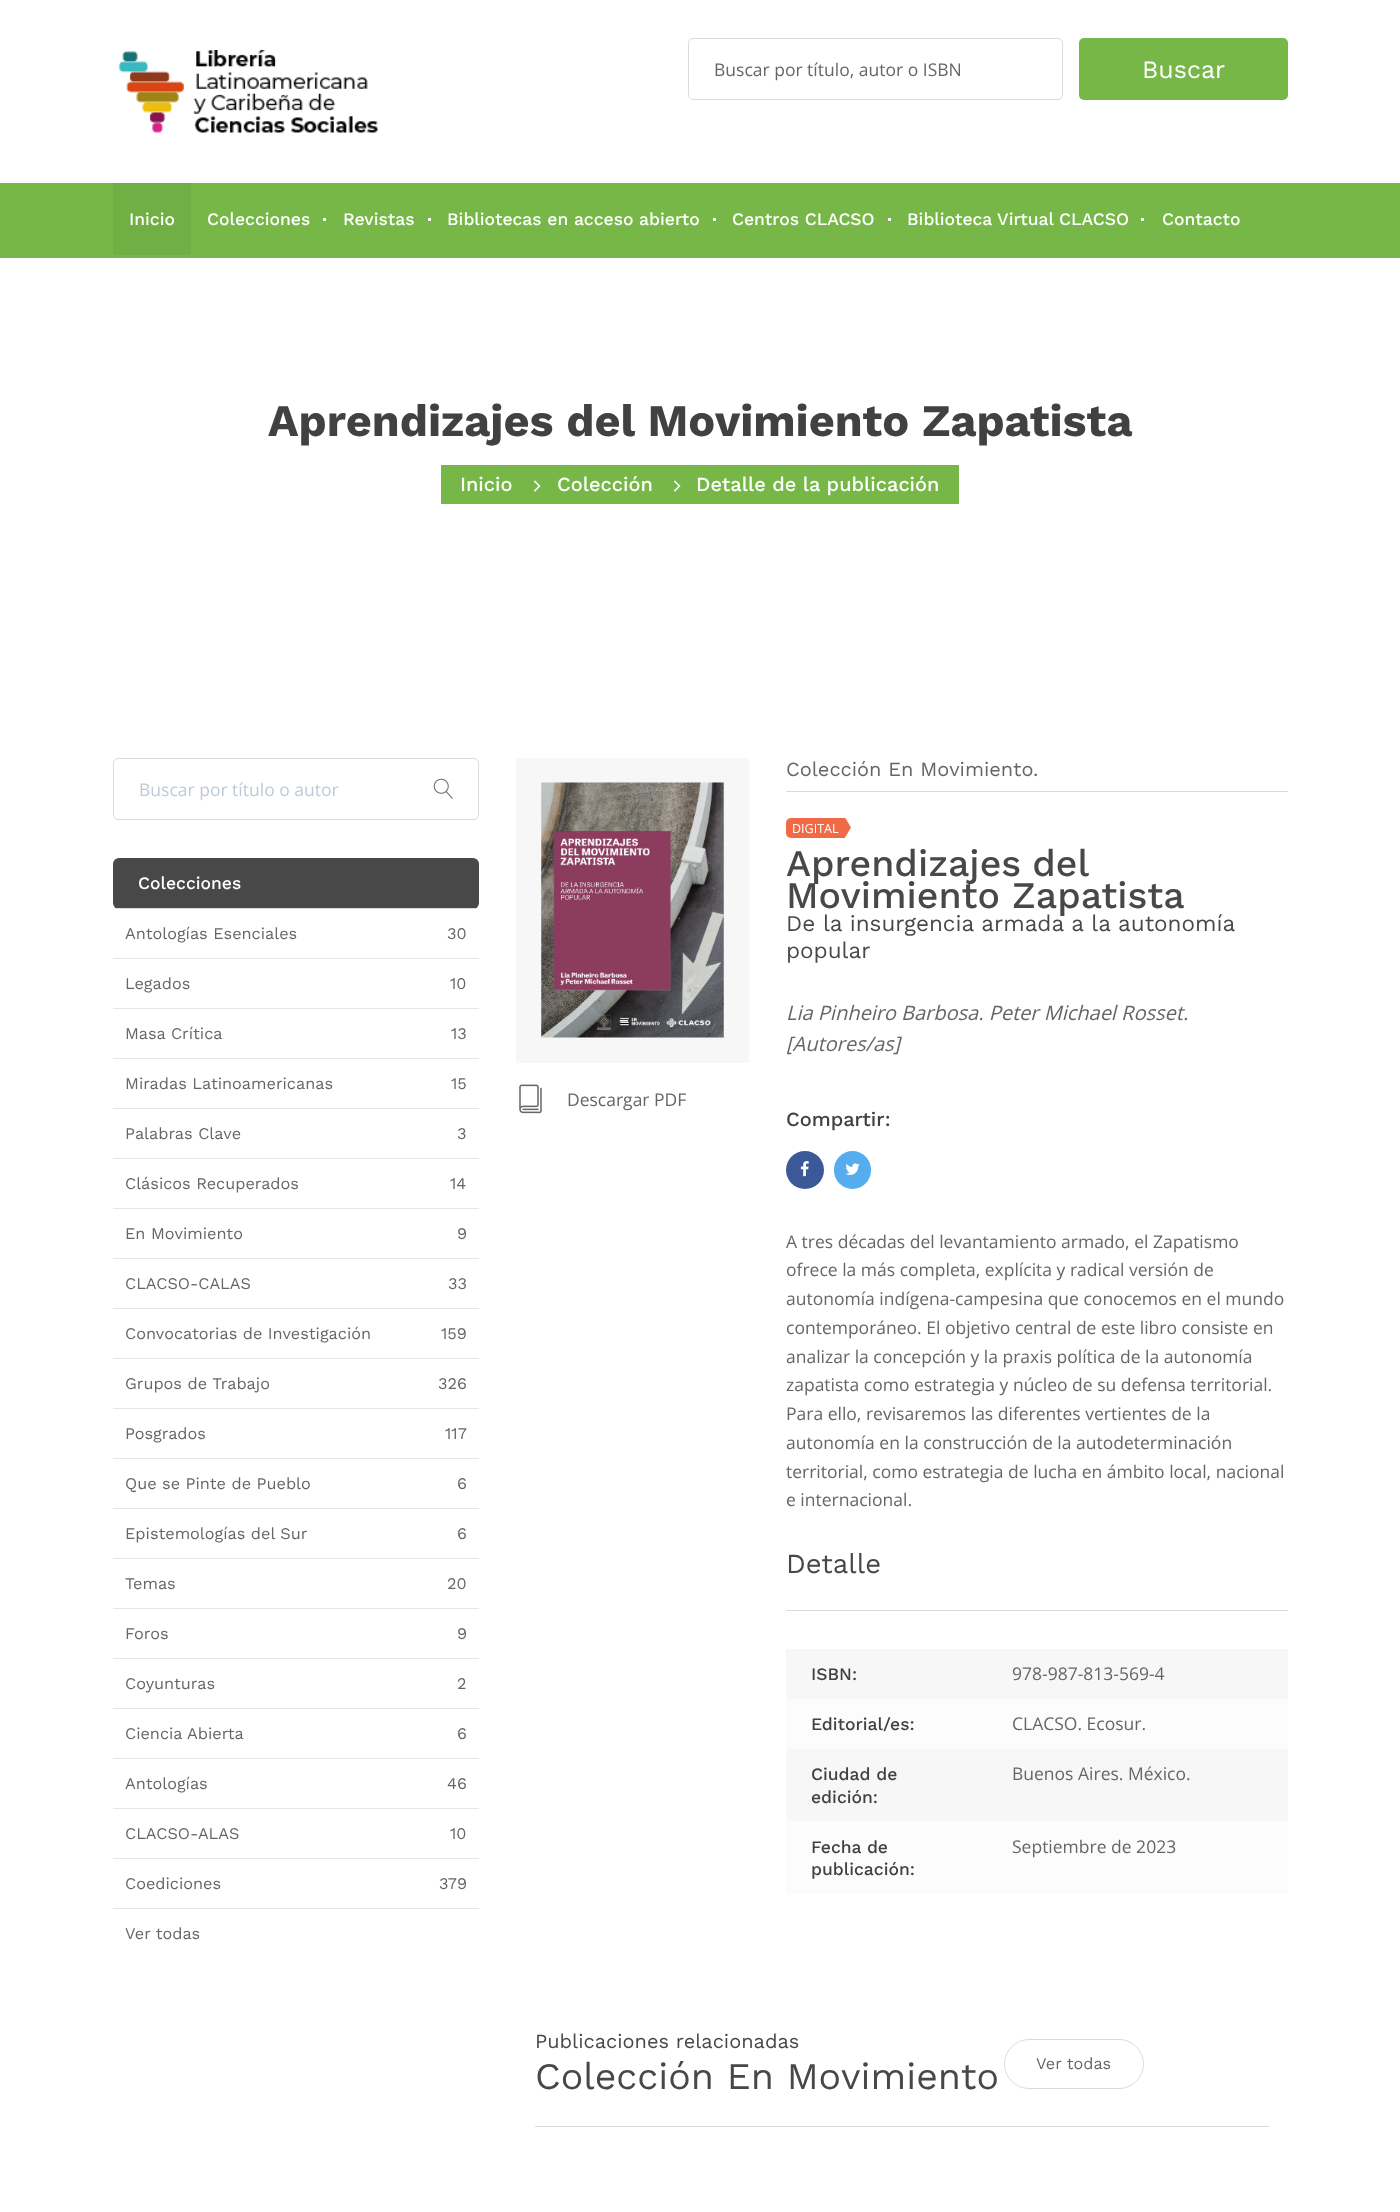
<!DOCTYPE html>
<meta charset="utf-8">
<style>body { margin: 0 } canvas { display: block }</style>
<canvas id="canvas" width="1400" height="2212"></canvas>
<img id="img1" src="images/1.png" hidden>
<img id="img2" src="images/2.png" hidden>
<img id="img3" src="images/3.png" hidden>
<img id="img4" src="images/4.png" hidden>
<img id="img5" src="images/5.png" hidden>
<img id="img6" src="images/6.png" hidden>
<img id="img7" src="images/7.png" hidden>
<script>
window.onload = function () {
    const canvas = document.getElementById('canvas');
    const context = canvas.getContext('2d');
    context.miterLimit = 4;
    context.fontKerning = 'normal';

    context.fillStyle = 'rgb(255, 255, 255)';
    context.fillRect(0, 0, 1400, 2212);
    context.drawImage(document.getElementById('img1'), 118, 50, 260, 83);
    context.beginPath();
    context.roundRect(688.5, 38.5, 374, 61, 4.5);
    context.strokeStyle = 'rgb(219, 219, 219)';
    context.stroke();
    context.fillStyle = 'rgb(119, 183, 72)';
    context.beginPath();
    context.roundRect(1079, 38, 209, 62, 5);
    context.fill();
    context.fillRect(0, 183, 1400, 75);
    context.fillStyle = 'rgb(113, 174, 68)';
    context.fillRect(113, 183, 78, 72);
    context.fillStyle = 'rgb(255, 255, 255)';
    context.fillRect(323, 218, 3, 3);
    context.fillRect(428, 218, 3, 3);
    context.fillRect(713, 218, 3, 3);
    context.fillRect(888, 218, 3, 3);
    context.fillRect(1141, 218, 3, 3);
    context.fillStyle = 'rgb(119, 183, 72)';
    context.fillRect(441, 465, 518, 39);
    context.drawImage(document.getElementById('img2'), 533, 480, 8, 12);
    context.drawImage(document.getElementById('img2'), 673, 480, 8, 12);
    context.beginPath();
    context.roundRect(113.5, 758.5, 365, 61, 4.5);
    context.stroke();
    context.drawImage(document.getElementById('img3'), 433, 778, 20, 21);
    context.fillStyle = 'rgb(72, 72, 72)';
    context.beginPath();
    context.roundRect(113, 858, 366, 51, 6);
    context.fill();
    context.fillStyle = 'rgb(219, 219, 219)';
    context.fillRect(116, 908, 360, 1);
    context.fillStyle = 'rgb(230, 230, 230)';
    context.fillRect(113, 958, 366, 1);
    context.fillRect(113, 1008, 366, 1);
    context.fillRect(113, 1058, 366, 1);
    context.fillRect(113, 1108, 366, 1);
    context.fillRect(113, 1158, 366, 1);
    context.fillRect(113, 1208, 366, 1);
    context.fillRect(113, 1258, 366, 1);
    context.fillRect(113, 1308, 366, 1);
    context.fillRect(113, 1358, 366, 1);
    context.fillRect(113, 1408, 366, 1);
    context.fillRect(113, 1458, 366, 1);
    context.fillRect(113, 1508, 366, 1);
    context.fillRect(113, 1558, 366, 1);
    context.fillRect(113, 1608, 366, 1);
    context.fillRect(113, 1658, 366, 1);
    context.fillRect(113, 1708, 366, 1);
    context.fillRect(113, 1758, 366, 1);
    context.fillRect(113, 1808, 366, 1);
    context.fillRect(113, 1858, 366, 1);
    context.fillRect(113, 1908, 366, 1);
    context.fillStyle = 'rgb(247, 247, 247)';
    context.fillRect(516, 758, 233, 305);
    context.drawImage(document.getElementById('img4'), 541, 782, 183, 256);
    context.drawImage(document.getElementById('img5'), 519, 1084, 23, 30);
    context.fillStyle = 'rgb(219, 219, 219)';
    context.fillRect(786, 791, 502, 1);
    context.fillStyle = 'rgb(241, 105, 69)';
    context.beginPath();
    context.roundRect(786, 818, 59, 20, [5, 0, 0, 5]);
    context.fill();
    context.beginPath();
    context.moveTo(845, 837.5);
    context.lineTo(845, 817.5);
    context.lineTo(851, 827.5);
    context.closePath();
    context.fill();
    context.fillStyle = 'rgb(59, 89, 153)';
    context.beginPath();
    context.arc(805, 1170, 19, 0, 2 * Math.PI);
    context.fill();
    context.drawImage(document.getElementById('img6'), 800, 1161, 9, 16);
    context.fillStyle = 'rgb(85, 172, 238)';
    context.beginPath();
    context.roundRect(834, 1151, 37, 38, 18.5);
    context.fill();
    context.drawImage(document.getElementById('img7'), 845, 1163, 15, 12);
    context.fillStyle = 'rgb(219, 219, 219)';
    context.fillRect(786, 1610, 502, 1);
    context.fillStyle = 'rgb(247, 247, 247)';
    context.fillRect(786, 1649, 502, 50);
    context.fillStyle = 'rgb(252, 252, 252)';
    context.fillRect(786, 1699, 502, 50);
    context.fillStyle = 'rgb(247, 247, 247)';
    context.fillRect(786, 1749, 502, 72);
    context.fillStyle = 'rgb(252, 252, 252)';
    context.fillRect(786, 1821, 502, 73);
    context.fillStyle = 'rgb(219, 219, 219)';
    context.fillRect(535, 2126, 734, 1);
    context.beginPath();
    context.roundRect(1004.5, 2039.5, 139, 49, 24.5);
    context.stroke();
    context.font = '17.5px Open Sans';
    context.fillStyle = 'rgb(102, 102, 102)';
    context.fillText('Buscar por título, autor o ISBN', 714, 76);
    context.font = '25px Work Sans';
    context.fillStyle = 'rgb(255, 255, 255)';
    context.fillText('Buscar', 1142, 78);
    context.font = '500 17.5px Work Sans';
    context.fillText('Inicio', 129, 225);
    context.fillText('Colecciones', 207, 225);
    context.fillText('Revistas', 343, 225);
    context.fillText('Bibliotecas en acceso abierto', 447, 225);
    context.fillText('Centros CLACSO', 732, 225);
    context.fillText('Biblioteca Virtual CLACSO', 907, 225);
    context.fillText('Contacto', 1162, 225);
    context.font = 'bold 45px Work Sans';
    context.fillStyle = 'rgb(65, 65, 65)';
    context.fillText('Aprendizajes del Movimiento Zapatista', 268, 436);
    context.font = '500 20px Work Sans';
    context.fillStyle = 'rgb(255, 255, 255)';
    context.fillText('Inicio', 460, 491);
    context.fillText('Colección', 557, 491);
    context.fillText('Detalle de la publicación', 696, 491);
    context.font = '17.5px Open Sans';
    context.fillStyle = 'rgb(191, 202, 216)';
    context.fillText('Buscar por título o autor', 139, 796);
    context.font = '500 17.5px Work Sans';
    context.fillStyle = 'rgb(255, 255, 255)';
    context.fillText('Colecciones', 138, 889);
    context.font = '16.25px Work Sans';
    context.fillStyle = 'rgb(102, 102, 102)';
    context.fillText('Antologías Esenciales', 125, 939);
    context.fillText('30', 447, 939);
    context.fillText('Legados', 125, 989);
    context.fillText('10', 450, 989);
    context.fillText('Masa Crítica', 125, 1039);
    context.fillText('13', 451, 1039);
    context.fillText('Miradas Latinoamericanas', 125, 1089);
    context.fillText('15', 451, 1089);
    context.fillText('Palabras Clave', 125, 1139);
    context.fillText('3', 457, 1139);
    context.fillText('Clásicos Recuperados', 125, 1189);
    context.fillText('14', 450, 1189);
    context.fillText('En Movimiento', 125, 1239);
    context.fillText('9', 457, 1239);
    context.fillText('CLACSO-CALAS', 125, 1289);
    context.fillText('33', 448, 1289);
    context.fillText('Convocatorias de Investigación', 125, 1339);
    context.fillText('159', 441, 1339);
    context.fillText('Grupos de Trabajo', 125, 1389);
    context.fillText('326', 438, 1389);
    context.fillText('Posgrados', 125, 1439);
    context.fillText('117', 445, 1439);
    context.fillText('Que se Pinte de Pueblo', 125, 1489);
    context.fillText('6', 457, 1489);
    context.fillText('Epistemologías del Sur', 125, 1539);
    context.fillText('6', 457, 1539);
    context.fillText('Temas', 125, 1589);
    context.fillText('20', 447, 1589);
    context.fillText('Foros', 125, 1639);
    context.fillText('9', 457, 1639);
    context.fillText('Coyunturas', 125, 1689);
    context.fillText('2', 457, 1689);
    context.fillText('Ciencia Abierta', 125, 1739);
    context.fillText('6', 457, 1739);
    context.fillText('Antologías', 125, 1789);
    context.fillText('46', 447, 1789);
    context.fillText('CLACSO-ALAS', 125, 1839);
    context.fillText('10', 450, 1839);
    context.fillText('Coediciones', 125, 1889);
    context.fillText('379', 439, 1889);
    context.fillText('Ver todas', 125, 1939);
    context.font = '17.5px Open Sans';
    context.fillText('Descargar PDF', 567, 1106);
    context.font = '20px Work Sans';
    context.fillText('Colección En Movimiento.', 786, 776);
    context.font = '12.5px Open Sans';
    context.fillStyle = 'rgb(255, 255, 255)';
    context.fillText('DIGITAL', 792, 833);
    context.wordSpacing = '-1px';
    context.font = '500 37.5px Work Sans';
    context.fillStyle = 'rgb(72, 72, 72)';
    context.fillText('Aprendizajes del', 786, 876);
    context.wordSpacing = '0px';
    context.fillText('Movimiento Zapatista', 786, 908);
    context.font = '22.5px Work Sans';
    context.fillText('De la insurgencia armada a la autonomía', 786, 931);
    context.fillText('popular', 786, 958);
    context.font = 'italic 20px Open Sans';
    context.fillStyle = 'rgb(102, 102, 102)';
    context.fillText('Lia Pinheiro Barbosa. Peter Michael Rosset.', 786, 1020);
    context.fillText('[Autores/as]', 786, 1051);
    context.font = '500 20px Work Sans';
    context.fillStyle = 'rgb(65, 65, 65)';
    context.fillText('Compartir:', 786, 1126);
    context.font = '17.5px Open Sans';
    context.fillStyle = 'rgb(102, 102, 102)';
    context.fillText('A tres décadas del levantamiento armado, el Zapatismo', 786, 1248);
    context.fillText('ofrece la más completa, explícita y radical versión de', 786, 1276);
    context.fillText('autonomía indígena-campesina que conocemos en el mundo', 786, 1305);
    context.fillText('contemporáneo. El objetivo central de este libro consiste en', 786, 1334);
    context.fillText('analizar la concepción y la praxis política de la autonomía', 786, 1363);
    context.fillText('zapatista como estrategia y núcleo de su defensa territorial.', 786, 1391);
    context.fillText('Para ello, revisaremos las diferentes vertientes de la', 786, 1420);
    context.fillText('autonomía en la construcción de la autodeterminación', 786, 1449);
    context.fillText('territorial, como estrategia de lucha en ámbito local, nacional', 786, 1478);
    context.fillText('e internacional.', 786, 1506);
    context.font = '27.5px Work Sans';
    context.fillStyle = 'rgb(72, 72, 72)';
    context.fillText('Detalle', 786, 1573);
    context.font = '500 17.5px Work Sans';
    context.fillStyle = 'rgb(65, 65, 65)';
    context.fillText('ISBN:', 811, 1680);
    context.font = '17.5px Open Sans';
    context.fillStyle = 'rgb(102, 102, 102)';
    context.fillText('978-987-813-569-4', 1012, 1680);
    context.font = '500 17.5px Work Sans';
    context.fillStyle = 'rgb(65, 65, 65)';
    context.fillText('Editorial/es:', 811, 1730);
    context.font = '17.5px Open Sans';
    context.fillStyle = 'rgb(102, 102, 102)';
    context.fillText('CLACSO. Ecosur.', 1012, 1730);
    context.font = '500 17.5px Work Sans';
    context.fillStyle = 'rgb(65, 65, 65)';
    context.fillText('Ciudad de', 811, 1780);
    context.fillText('edición:', 811, 1803);
    context.font = '17.5px Open Sans';
    context.fillStyle = 'rgb(102, 102, 102)';
    context.fillText('Buenos Aires. México.', 1012, 1780);
    context.font = '500 17.5px Work Sans';
    context.fillStyle = 'rgb(65, 65, 65)';
    context.fillText('Fecha de', 811, 1853);
    context.fillText('publicación:', 811, 1875);
    context.font = '17.5px Open Sans';
    context.fillStyle = 'rgb(102, 102, 102)';
    context.fillText('Septiembre de 2023', 1012, 1853);
    context.font = '20px Work Sans';
    context.fillStyle = 'rgb(72, 72, 72)';
    context.fillText('Publicaciones relacionadas', 535, 2048);
    context.font = '37.5px Work Sans';
    context.fillText('Colección En Movimiento', 535, 2089);
    context.font = '16.25px Work Sans';
    context.fillStyle = 'rgb(102, 102, 102)';
    context.fillText('Ver todas', 1036, 2069);
};
</script>
